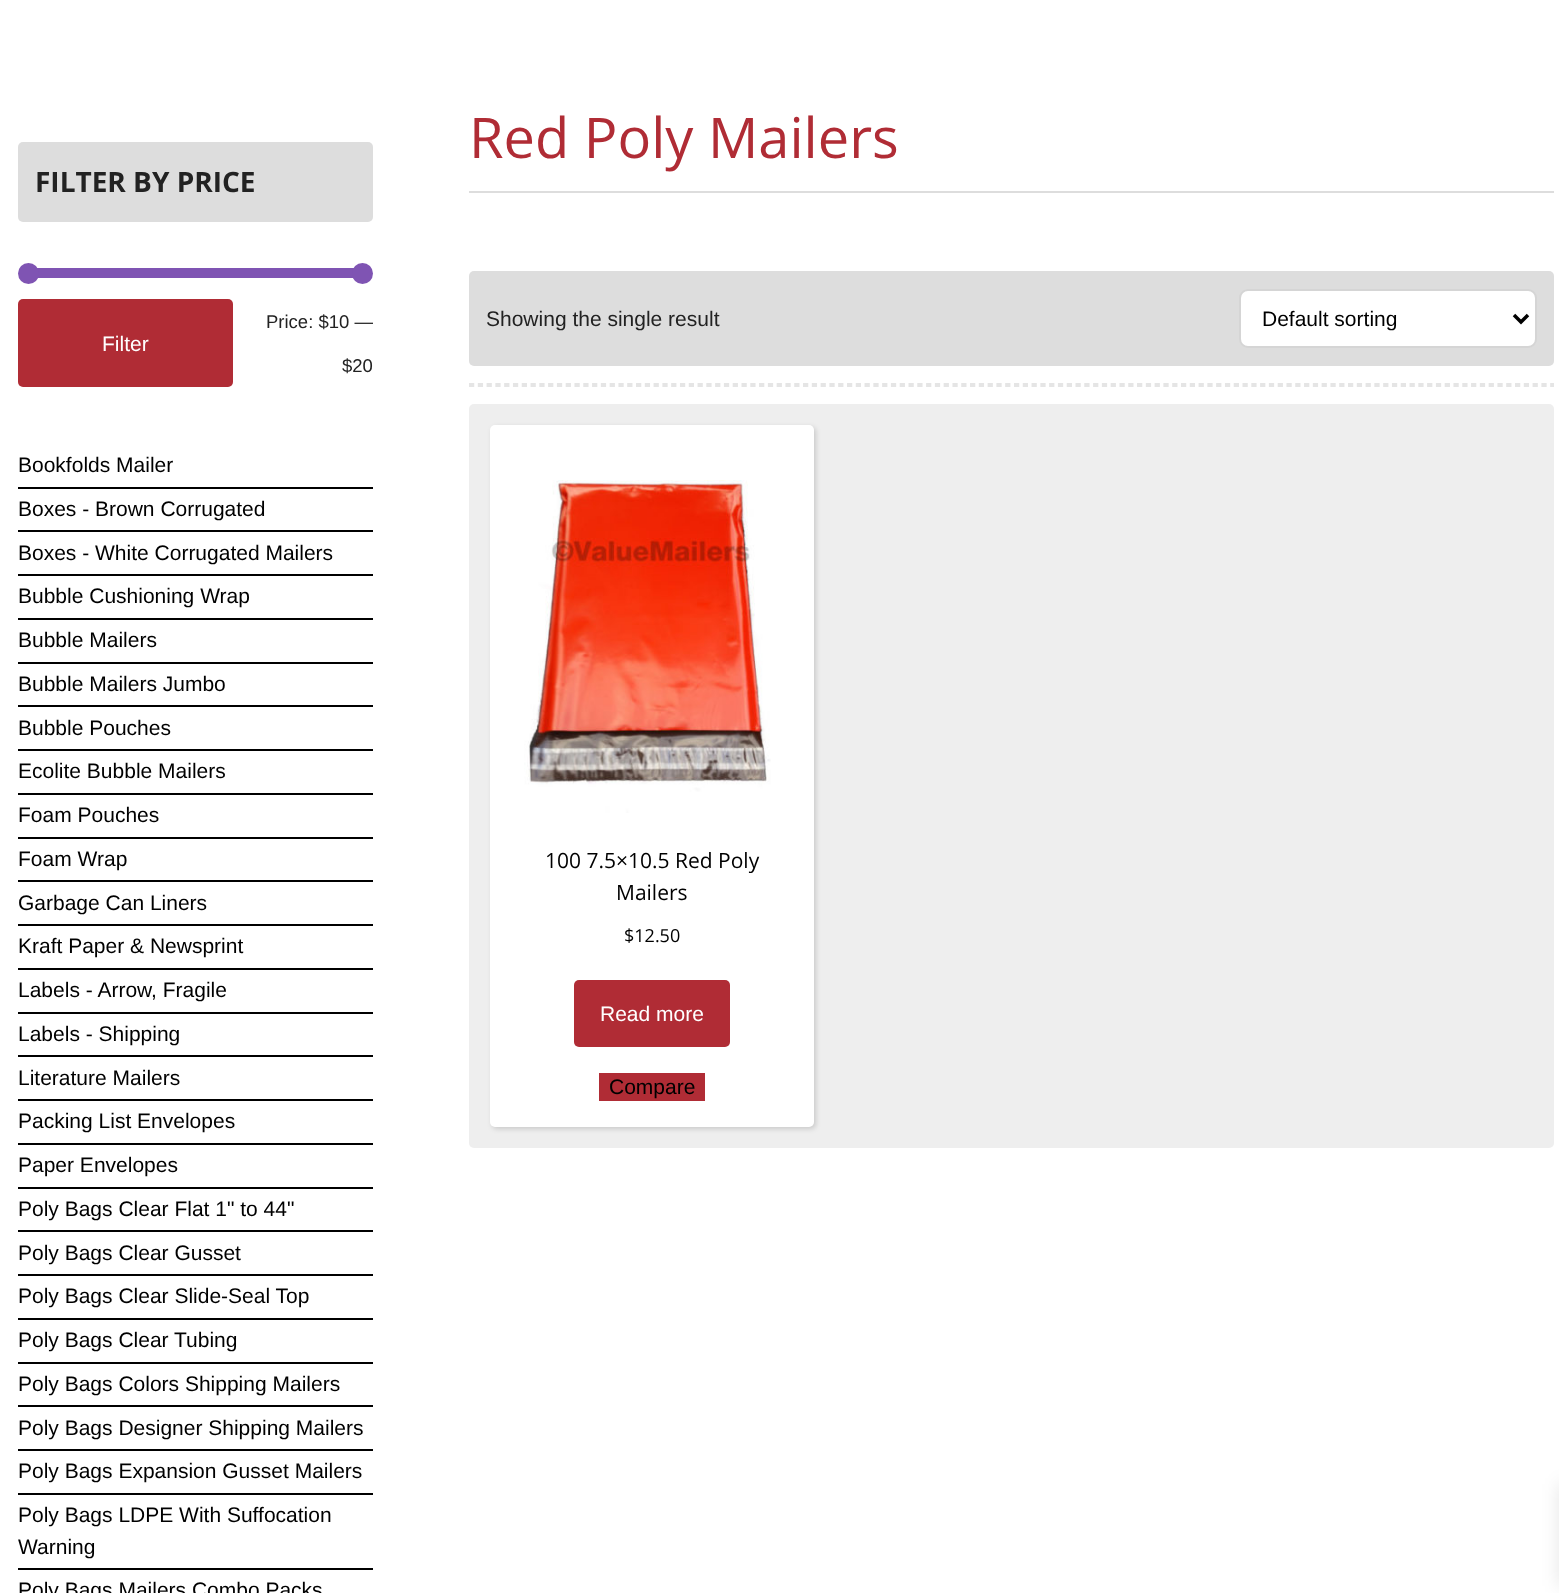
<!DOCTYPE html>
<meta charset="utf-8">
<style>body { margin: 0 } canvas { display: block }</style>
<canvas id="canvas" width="1559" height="1593"></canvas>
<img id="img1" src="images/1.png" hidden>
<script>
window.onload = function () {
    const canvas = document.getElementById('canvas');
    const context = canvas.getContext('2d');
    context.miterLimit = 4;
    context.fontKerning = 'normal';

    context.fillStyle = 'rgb(255, 255, 255)';
    context.fillRect(0, 0, 1559, 1593);
    context.fillStyle = 'rgb(221, 221, 221)';
    context.beginPath();
    context.roundRect(18, 142, 355, 80, 5);
    context.fill();
    context.fillStyle = 'rgb(127, 84, 179)';
    context.fillRect(37, 268, 317, 10);
    context.beginPath();
    context.arc(28.5, 273.5, 10.5, 0, 2 * Math.PI);
    context.fill();
    context.beginPath();
    context.arc(362.5, 273.5, 10.5, 0, 2 * Math.PI);
    context.fill();
    context.fillStyle = 'rgb(176, 44, 53)';
    context.beginPath();
    context.roundRect(18, 299, 215, 88, 5);
    context.fill();
    context.fillStyle = 'rgb(0, 0, 0)';
    context.fillRect(18, 487, 355, 2);
    context.fillRect(18, 530, 355, 2);
    context.fillRect(18, 574, 355, 2);
    context.fillRect(18, 618, 355, 2);
    context.fillRect(18, 662, 355, 2);
    context.fillRect(18, 705, 355, 2);
    context.fillRect(18, 749, 355, 2);
    context.fillRect(18, 793, 355, 2);
    context.fillRect(18, 837, 355, 2);
    context.fillRect(18, 880, 355, 2);
    context.fillRect(18, 924, 355, 2);
    context.fillRect(18, 968, 355, 2);
    context.fillRect(18, 1012, 355, 2);
    context.fillRect(18, 1055, 355, 2);
    context.fillRect(18, 1099, 355, 2);
    context.fillRect(18, 1143, 355, 2);
    context.fillRect(18, 1187, 355, 2);
    context.fillRect(18, 1230, 355, 2);
    context.fillRect(18, 1274, 355, 2);
    context.fillRect(18, 1318, 355, 2);
    context.fillRect(18, 1362, 355, 2);
    context.fillRect(18, 1405, 355, 2);
    context.fillRect(18, 1449, 355, 2);
    context.fillRect(18, 1493, 355, 2);
    context.fillRect(18, 1568, 355, 2);
    context.fillStyle = 'rgb(221, 221, 221)';
    context.fillRect(469, 191, 1085, 2);
    context.beginPath();
    context.roundRect(469, 271, 1085, 95, 5);
    context.fill();
    context.fillStyle = 'rgb(255, 255, 255)';
    context.beginPath();
    context.roundRect(1240, 290, 296, 57, 8);
    context.fill();
    context.strokeStyle = 'rgb(213, 213, 213)';
    context.lineWidth = 2;
    context.stroke();
    context.beginPath();
    context.moveTo(1514, 315);
    context.lineTo(1521, 322);
    context.lineTo(1528, 315);
    context.strokeStyle = 'rgb(0, 0, 0)';
    context.lineWidth = 3.5;
    context.stroke();
    context.beginPath();
    context.moveTo(469, 384);
    context.lineTo(1554, 384);
    context.strokeStyle = 'rgb(229, 229, 229)';
    context.lineWidth = 1.8;
    context.setLineDash([5.25, 3.54]);
    context.stroke();
    context.fillStyle = 'rgb(229, 229, 229)';
    context.fillRect(1552, 383, 2, 4);
    context.beginPath();
    context.moveTo(469, 386);
    context.lineTo(1554, 386);
    context.stroke();
    context.fillStyle = 'rgb(238, 238, 238)';
    context.beginPath();
    context.roundRect(469, 404, 1085, 744, 5);
    context.fill();
    context.fillStyle = 'rgba(0, 0, 0, 0.15)';
    context.filter = 'blur(2.5px)';
    context.beginPath();
    context.roundRect(492, 427, 324, 702, 5);
    context.fill();
    context.filter = 'none';
    context.fillStyle = 'rgb(255, 255, 255)';
    context.beginPath();
    context.roundRect(490, 425, 324, 702, 5);
    context.fill();
    context.drawImage(document.getElementById('img1'), 524, 480, 247, 333);
    context.fillStyle = 'rgb(176, 44, 53)';
    context.beginPath();
    context.roundRect(574, 980, 156, 67, 5);
    context.fill();
    context.fillRect(599, 1073, 106, 28);
    context.fillStyle = 'rgba(0, 0, 0, 0.1)';
    context.filter = 'blur(9px)';
    context.beginPath();
    context.rect(1559, 1484, 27, 102);
    context.fill();
    context.filter = 'none';
    context.font = 'bold 28px Open Sans';
    context.fillStyle = 'rgb(34, 34, 34)';
    context.fillText('FILTER BY PRICE', 35, 192);
    context.font = '21px Liberation Sans';
    context.fillStyle = 'rgb(255, 255, 255)';
    context.fillText('Filter', 102, 351);
    context.font = '18.5px Liberation Sans';
    context.fillStyle = 'rgb(34, 34, 34)';
    context.fillText('Price: $10 —', 266, 328);
    context.fillText('$20', 342, 372);
    context.font = '21px Liberation Sans';
    context.fillStyle = 'rgb(0, 0, 0)';
    context.fillText('Bookfolds Mailer', 18, 472);
    context.fillText('Boxes - Brown Corrugated', 18, 516);
    context.fillText('Boxes - White Corrugated Mailers', 18, 560);
    context.fillText('Bubble Cushioning Wrap', 18, 603);
    context.fillText('Bubble Mailers', 18, 647);
    context.fillText('Bubble Mailers Jumbo', 18, 691);
    context.fillText('Bubble Pouches', 18, 735);
    context.fillText('Ecolite Bubble Mailers', 18, 778);
    context.fillText('Foam Pouches', 18, 822);
    context.fillText('Foam Wrap', 18, 866);
    context.fillText('Garbage Can Liners', 18, 910);
    context.fillText('Kraft Paper & Newsprint', 18, 953);
    context.fillText('Labels - Arrow, Fragile', 18, 997);
    context.fillText('Labels - Shipping', 18, 1041);
    context.fillText('Literature Mailers', 18, 1085);
    context.fillText('Packing List Envelopes', 18, 1128);
    context.fillText('Paper Envelopes', 18, 1172);
    context.fillText('Poly Bags Clear Flat 1" to 44"', 18, 1216);
    context.fillText('Poly Bags Clear Gusset', 18, 1260);
    context.fillText('Poly Bags Clear Slide-Seal Top', 18, 1303);
    context.fillText('Poly Bags Clear Tubing', 18, 1347);
    context.fillText('Poly Bags Colors Shipping Mailers', 18, 1391);
    context.fillText('Poly Bags Designer Shipping Mailers', 18, 1435);
    context.fillText('Poly Bags Expansion Gusset Mailers', 18, 1478);
    context.fillText('Poly Bags LDPE With Suffocation', 18, 1522);
    context.fillText('Warning', 18, 1554);
    context.fillText('Poly Bags Mailers Combo Packs', 18, 1597);
    context.font = '56px Open Sans';
    context.fillStyle = 'rgb(176, 44, 53)';
    context.fillText('Red Poly Mailers', 469, 158);
    context.font = '21px Liberation Sans';
    context.fillStyle = 'rgb(34, 34, 34)';
    context.fillText('Showing the single result', 486, 326);
    context.fillStyle = 'rgb(0, 0, 0)';
    context.fillText('Default sorting', 1262, 326);
    context.font = '21px Open Sans';
    context.fillText('100 7.5×10.5 Red Poly', 545, 868);
    context.fillText('Mailers', 616, 900);
    context.font = '18px Open Sans';
    context.fillText('$12.50', 624, 942);
    context.font = '21px Liberation Sans';
    context.fillStyle = 'rgb(255, 255, 255)';
    context.fillText('Read more', 600, 1021);
    context.fillStyle = 'rgb(0, 0, 0)';
    context.fillText('Compare', 609, 1094);
};
</script>
